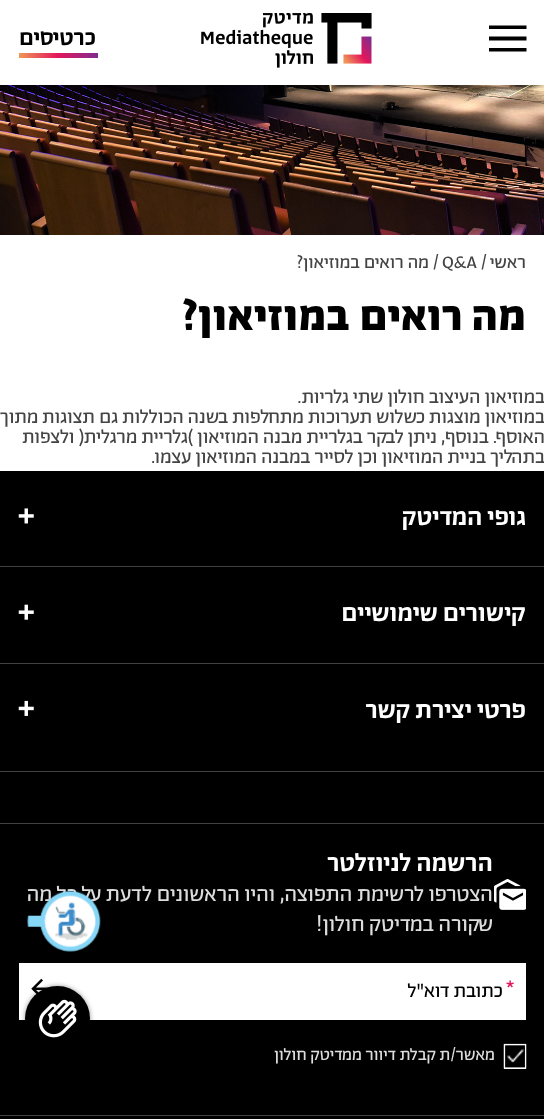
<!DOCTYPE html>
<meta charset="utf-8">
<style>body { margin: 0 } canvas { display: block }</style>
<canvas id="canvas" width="544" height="1119"></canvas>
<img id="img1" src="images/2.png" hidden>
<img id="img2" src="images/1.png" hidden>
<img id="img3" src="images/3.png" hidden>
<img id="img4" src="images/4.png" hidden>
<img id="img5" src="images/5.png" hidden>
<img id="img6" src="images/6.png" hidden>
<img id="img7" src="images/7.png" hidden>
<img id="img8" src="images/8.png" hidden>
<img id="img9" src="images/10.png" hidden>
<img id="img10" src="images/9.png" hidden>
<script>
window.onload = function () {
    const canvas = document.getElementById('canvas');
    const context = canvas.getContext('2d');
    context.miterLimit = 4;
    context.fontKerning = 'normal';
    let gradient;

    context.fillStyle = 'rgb(255, 255, 255)';
    context.fillRect(0, 0, 544, 1119);
    context.drawImage(document.getElementById('img1'), 0, 85, 544, 150);
    context.fillStyle = 'rgba(0, 0, 0, 0.3)';
    context.filter = 'blur(2.5px)';
    context.beginPath();
    context.rect(0, 0, 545, 85);
    context.fill();
    context.filter = 'none';
    context.fillStyle = 'rgb(255, 255, 255)';
    context.fillRect(0, 0, 544, 85);
    context.fillStyle = 'rgb(0, 0, 0)';
    context.beginPath();
    context.moveTo(489, 29);
    context.lineTo(526.5, 29);
    context.lineTo(526.5, 25.5);
    context.lineTo(489, 25.5);
    context.closePath();
    context.moveTo(489, 40.5);
    context.lineTo(526.5, 40.5);
    context.lineTo(526.5, 36.5);
    context.lineTo(489, 36.5);
    context.closePath();
    context.moveTo(489, 51.5);
    context.lineTo(526.5, 51.5);
    context.lineTo(526.5, 48);
    context.lineTo(489, 48);
    context.closePath();
    context.fill();
    context.drawImage(document.getElementById('img2'), 201, 13, 171, 55);
    gradient = context.createLinearGradient(98, 55, 19, 55);
    gradient.addColorStop(0, 'rgb(128, 44, 142)');
    gradient.addColorStop(0.51, 'rgb(227, 22, 91)');
    gradient.addColorStop(1, 'rgb(239, 151, 87)');
    context.fillStyle = gradient;
    context.fillRect(19, 53, 79, 5);
    context.fillStyle = 'rgb(0, 0, 0)';
    context.fillRect(0, 471, 544, 648);
    context.fillStyle = 'rgb(66, 66, 66)';
    context.fillRect(0, 566, 544, 1);
    context.drawImage(document.getElementById('img3'), 18, 508, 16, 16);
    context.fillRect(0, 663, 544, 1);
    context.drawImage(document.getElementById('img4'), 18, 604, 16, 16);
    context.fillRect(0, 771, 544, 1);
    context.drawImage(document.getElementById('img5'), 18, 700, 16, 16);
    context.fillRect(0, 823, 544, 1);
    context.fillRect(0, 1115, 544, 1);
    context.drawImage(document.getElementById('img6'), 494, 879, 32, 31);
    context.fillStyle = 'rgb(255, 255, 255)';
    context.fillRect(19, 963, 507, 57);
    context.drawImage(document.getElementById('img7'), 31, 978, 19, 17);
    context.drawImage(document.getElementById('img8'), 503, 1043, 24, 26);
    context.strokeStyle = 'rgb(255, 255, 255)';
    context.strokeRect(504.5, 1044.5, 21, 24);
    context.fillStyle = 'rgba(0, 0, 0, 0.4)';
    context.filter = 'blur(2.5px)';
    context.beginPath();
    context.roundRect(25, 986, 65, 65, 32.5);
    context.fill();
    context.filter = 'none';
    context.fillStyle = 'rgb(0, 0, 0)';
    context.beginPath();
    context.arc(57.5, 1018.5, 32.5, 0, 2 * Math.PI);
    context.fill();
    context.drawImage(document.getElementById('img9'), 38, 999, 39, 39);
    context.direction = 'rtl';
    context.font = '500 24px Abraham';
    context.fillText('כרטיסים', 96, 45);
    context.font = '18.75px Abraham';
    context.fillStyle = 'rgb(68, 68, 68)';
    context.fillText('ראשי', 526, 268);
    context.direction = 'ltr';
    context.fillText('/', 481, 268);
    context.fillText('Q&A', 442, 268);
    context.fillText('/', 433, 268);
    context.direction = 'rtl';
    context.fillText('מה רואים במוזיאון?', 429, 268);
    context.font = 'bold 45px Abraham';
    context.fillStyle = 'rgb(0, 0, 0)';
    context.fillText('מה רואים במוזיאון?', 526, 330);
    context.font = '20px Abraham';
    context.fillStyle = 'rgb(68, 68, 68)';
    context.fillText('במוזיאון העיצוב חולון שתי גלריות.', 545, 403);
    context.fillText('במוזיאון מוצגות כשלוש תערוכות מתחלפות בשנה הכוללות גם תצוגות מתוך', 545, 423);
    context.fillText('האוסף. בנוסף, ניתן לבקר בגלריית מבנה המוזיאון )גלריית מרגלית( ולצפות', 545, 443);
    context.fillText('בתהליך בניית המוזיאון וכן לסייר במבנה המוזיאון עצמו.', 545, 463);
    context.font = '500 26.25px Abraham';
    context.fillStyle = 'rgb(255, 255, 255)';
    context.fillText('גופי המדיטק', 526, 525);
    context.fillText('קישורים שימושיים', 526, 621);
    context.fillText('פרטי יצירת קשר', 526, 718);
    context.fillText('הרשמה לניוזלטר', 493, 871);
    context.font = '22.5px Abraham';
    context.fillStyle = 'rgb(221, 221, 221)';
    context.fillText('הצטרפו לרשימת התפוצה, והיו הראשונים לדעת על כל מה', 493, 901);
    context.fillText('שקורה במדיטק חולון!', 493, 931);
    context.direction = 'ltr';
    context.font = '20px Abraham';
    context.fillStyle = 'rgb(227, 22, 91)';
    context.fillText('*', 506, 993);
    context.direction = 'rtl';
    context.fillStyle = 'rgb(0, 0, 0)';
    context.fillText('כתובת דוא"ל', 503, 997);
    context.font = '17.5px Abraham';
    context.fillStyle = 'rgb(221, 221, 221)';
    context.fillText('מאשר/ת קבלת דיוור ממדיטק חולון', 495, 1060);
    context.drawImage(document.getElementById('img10'), 27, 890, 74, 62);
};
</script>
